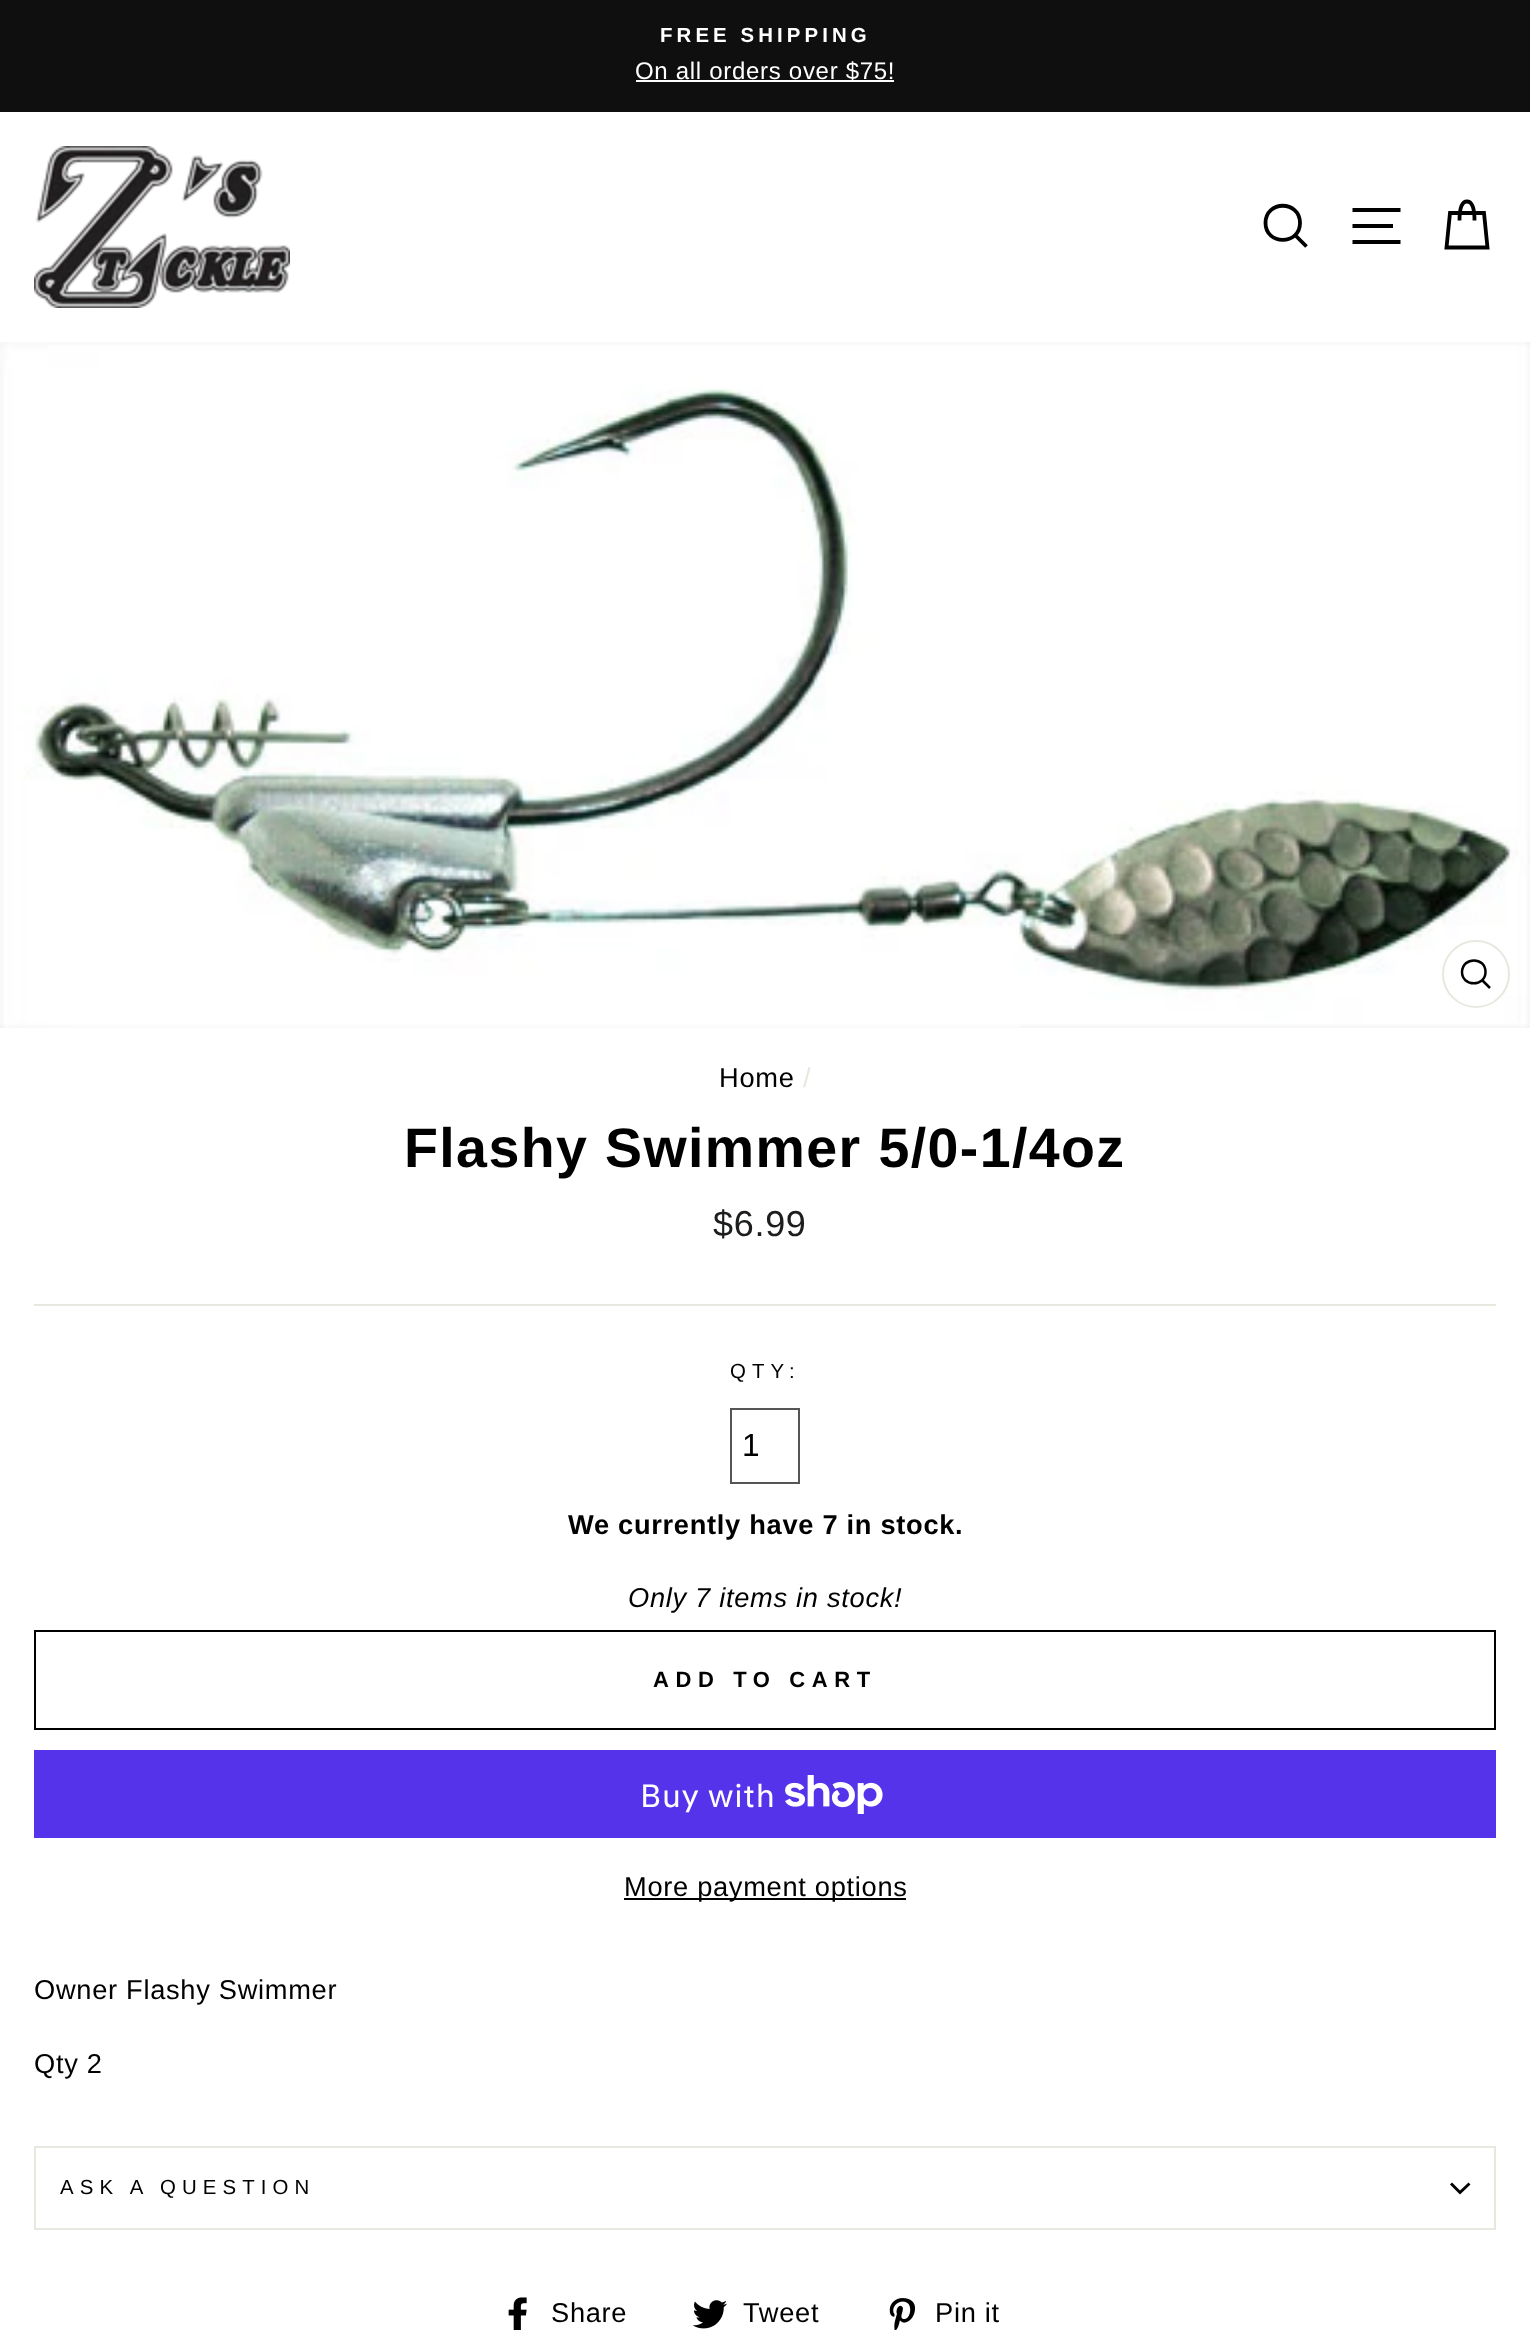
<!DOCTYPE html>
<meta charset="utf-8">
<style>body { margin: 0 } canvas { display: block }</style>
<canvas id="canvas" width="1530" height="2330"></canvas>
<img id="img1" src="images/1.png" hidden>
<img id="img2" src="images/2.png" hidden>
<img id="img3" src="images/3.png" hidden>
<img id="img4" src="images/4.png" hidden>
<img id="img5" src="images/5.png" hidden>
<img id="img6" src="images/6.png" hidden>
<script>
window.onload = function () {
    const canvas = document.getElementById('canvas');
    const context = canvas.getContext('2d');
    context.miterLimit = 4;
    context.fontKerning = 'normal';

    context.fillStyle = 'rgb(255, 255, 255)';
    context.fillRect(0, 0, 1530, 2330);
    context.fillStyle = 'rgb(15, 15, 15)';
    context.fillRect(0, 0, 1530, 112);
    context.fillStyle = 'rgb(255, 255, 255)';
    context.fillRect(636, 80, 258, 2);
    context.save();
    context.beginPath();
    context.rect(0, 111, 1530, 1);
    context.clip();
    context.fillStyle = 'rgba(0, 0, 0, 0.2)';
    context.filter = 'blur(1px)';
    context.beginPath();
    context.rect(0, 112, 1530, 230);
    context.fill();
    context.filter = 'none';
    context.restore();
    context.drawImage(document.getElementById('img1'), 34, 146, 256, 162);
    context.beginPath();
    context.moveTo(1300, 223);
    context.bezierCurveTo(1300, 245.5, 1265.5, 245.5, 1265.5, 223);
    context.bezierCurveTo(1265.5, 200, 1300, 200, 1300, 223);
    context.closePath();
    context.moveTo(1306.5, 246.5);
    context.lineTo(1295.5, 235.5);
    context.strokeStyle = 'rgb(0, 0, 0)';
    context.lineWidth = 3.8;
    context.stroke();
    context.beginPath();
    context.moveTo(1352.5, 210);
    context.lineTo(1400.5, 210);
    context.moveTo(1352.5, 226);
    context.lineTo(1393, 226);
    context.moveTo(1352.5, 242);
    context.lineTo(1400.5, 242);
    context.stroke();
    context.beginPath();
    context.moveTo(1459.5, 220.5);
    context.bezierCurveTo(1459.5, 205.5, 1463, 201.5, 1467, 201.5);
    context.bezierCurveTo(1471, 201.5, 1474.5, 205.5, 1474.5, 220.5);
    context.moveTo(1450, 213);
    context.lineTo(1484, 213);
    context.lineTo(1487.5, 247.5);
    context.lineTo(1446.5, 247.5);
    context.closePath();
    context.stroke();
    context.drawImage(document.getElementById('img2'), 0, 342, 1530, 686);
    context.beginPath();
    context.arc(1476, 974, 33, 0, 2 * Math.PI);
    context.strokeStyle = 'rgb(232, 232, 225)';
    context.lineWidth = 2;
    context.stroke();
    context.beginPath();
    context.moveTo(1485.5, 972);
    context.bezierCurveTo(1485.5, 987, 1462, 987, 1462, 972);
    context.bezierCurveTo(1462.5, 956.5, 1485.5, 956.5, 1485.5, 972);
    context.closePath();
    context.moveTo(1490, 988);
    context.lineTo(1482, 980);
    context.strokeStyle = 'rgb(0, 0, 0)';
    context.lineWidth = 2.5;
    context.stroke();
    context.fillStyle = 'rgb(232, 232, 225)';
    context.fillRect(34, 1304, 1462, 2);
    context.strokeStyle = 'rgb(85, 85, 85)';
    context.lineWidth = 2;
    context.strokeRect(731, 1409, 68, 74);
    context.strokeStyle = 'rgb(0, 0, 0)';
    context.strokeRect(35, 1631, 1460, 98);
    context.fillStyle = 'rgb(84, 51, 235)';
    context.fillRect(34, 1750, 1462, 88);
    context.drawImage(document.getElementById('img3'), 785, 1775, 98, 39);
    context.fillStyle = 'rgb(0, 0, 0)';
    context.fillRect(624, 1898, 282, 2);
    context.fillStyle = 'rgb(232, 232, 225)';
    context.fillRect(34, 2228, 1462, 2);
    context.fillRect(34, 2146, 1462, 2);
    context.fillRect(1494, 2146, 2, 82);
    context.fillRect(34, 2146, 2, 82);
    context.beginPath();
    context.moveTo(1451, 2183.5);
    context.lineTo(1460, 2192.5);
    context.lineTo(1469.5, 2183.5);
    context.lineWidth = 2.9;
    context.stroke();
    context.drawImage(document.getElementById('img4'), 508, 2297, 19, 33);
    context.drawImage(document.getElementById('img5'), 692, 2300, 35, 29);
    context.drawImage(document.getElementById('img6'), 889, 2298, 26, 32);
    context.letterSpacing = '4.1px';
    context.font = 'bold 20.4px Arimo';
    context.fillStyle = 'rgb(255, 255, 255)';
    context.fillText('FREE SHIPPING', 660, 42);
    context.letterSpacing = '0.7px';
    context.font = '24px Arimo';
    context.fillText('On all orders over $75!', 635, 79);
    context.font = '27.25px Arimo';
    context.fillStyle = 'rgb(0, 0, 0)';
    context.fillText('Home', 719, 1087);
    context.fillStyle = 'rgb(232, 232, 225)';
    context.fillText('/', 803, 1087);
    context.letterSpacing = '1.4px';
    context.font = 'bold 55.5px Arimo';
    context.fillStyle = 'rgb(0, 0, 0)';
    context.fillText('Flashy Swimmer 5/0-1/4oz', 404, 1167);
    context.letterSpacing = '0.7px';
    context.font = '36px Arimo';
    context.fillStyle = 'rgb(28, 29, 29)';
    context.fillText('$6.99', 713, 1236);
    context.letterSpacing = '6.1px';
    context.font = '20.4px Arimo';
    context.fillStyle = 'rgb(0, 0, 0)';
    context.fillText('QTY:', 730, 1378);
    context.save();
    context.beginPath();
    context.rect(742, 1420, 16, 52);
    context.clip();
    context.letterSpacing = '1px';
    context.font = '32px Arimo';
    context.fillText('1', 742, 1456);
    context.restore();
    context.letterSpacing = '0.7px';
    context.font = 'bold 27.25px Arimo';
    context.fillText('We currently have 7 in stock.', 568, 1534);
    context.font = 'italic 27.25px Arimo';
    context.fillText('Only 7 items in stock!', 628, 1607);
    context.letterSpacing = '6.6px';
    context.font = 'bold 22px Arimo';
    context.fillText('ADD TO CART', 653, 1687);
    context.letterSpacing = '0.7px';
    context.font = '32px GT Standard';
    context.fillStyle = 'rgb(255, 255, 255)';
    context.fillText('Buy with', 640, 1807);
    context.font = '27.25px Arimo';
    context.fillStyle = 'rgb(0, 0, 0)';
    context.fillText('More payment options', 624, 1896);
    context.fillText('Owner Flashy Swimmer', 34, 1999);
    context.fillText('Qty 2', 34, 2073);
    context.letterSpacing = '6.1px';
    context.font = '20.4px Arimo';
    context.fillText('ASK A QUESTION', 60, 2194);
    context.letterSpacing = '0.7px';
    context.font = '27.25px Arimo';
    context.fillText('Share', 551, 2322);
    context.fillText('Tweet', 743, 2322);
    context.fillText('Pin it', 935, 2322);
};
</script>
